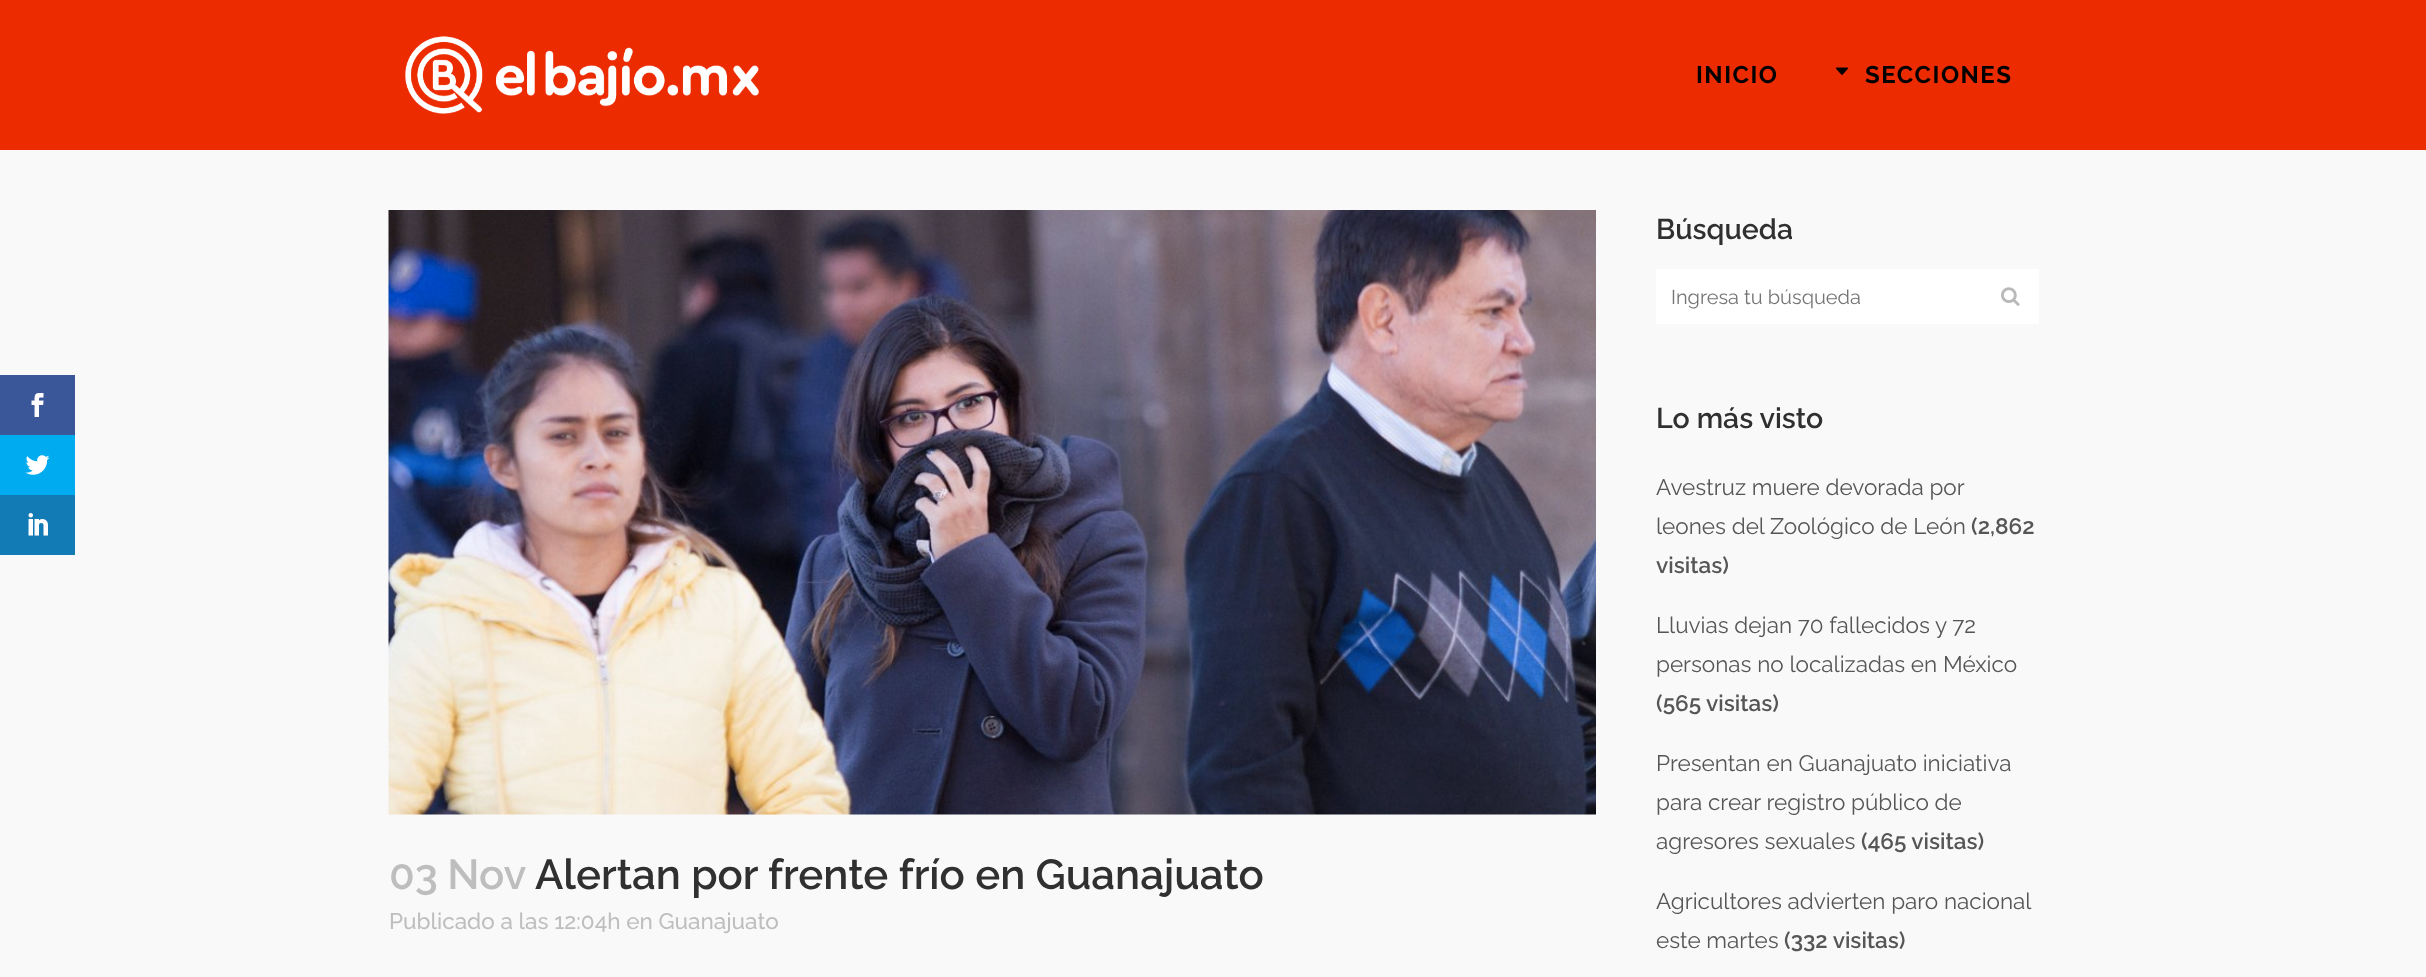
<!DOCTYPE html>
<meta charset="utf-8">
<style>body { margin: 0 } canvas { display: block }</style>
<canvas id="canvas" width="2426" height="977"></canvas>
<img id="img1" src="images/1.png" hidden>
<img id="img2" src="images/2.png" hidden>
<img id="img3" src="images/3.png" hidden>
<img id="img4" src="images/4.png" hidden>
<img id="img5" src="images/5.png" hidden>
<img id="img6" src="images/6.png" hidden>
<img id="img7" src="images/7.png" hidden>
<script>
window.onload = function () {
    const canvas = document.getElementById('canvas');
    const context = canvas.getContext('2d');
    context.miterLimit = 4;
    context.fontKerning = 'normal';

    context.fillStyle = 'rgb(249, 249, 249)';
    context.fillRect(0, 0, 2426, 977);
    context.fillStyle = 'rgb(58, 87, 154)';
    context.fillRect(0, 375, 75, 60);
    context.drawImage(document.getElementById('img1'), 31, 393, 13, 24);
    context.fillStyle = 'rgb(0, 171, 240)';
    context.fillRect(0, 435, 75, 60);
    context.drawImage(document.getElementById('img2'), 25, 455, 25, 20);
    context.fillStyle = 'rgb(18, 123, 182)';
    context.fillRect(0, 495, 75, 60);
    context.drawImage(document.getElementById('img3'), 28, 513, 20, 23);
    context.fillStyle = 'rgb(236, 43, 0)';
    context.fillRect(0, 0, 2426, 150);
    context.drawImage(document.getElementById('img4'), 405, 36, 354, 78);
    context.drawImage(document.getElementById('img5'), 1836, 67, 12, 8);
    context.drawImage(document.getElementById('img6'), 388, 210, 1208, 605);
    context.fillStyle = 'rgb(255, 255, 255)';
    context.fillRect(1656, 269, 383, 55);
    context.drawImage(document.getElementById('img7'), 2001, 287, 19, 19);
    context.letterSpacing = '1.5px';
    context.font = 'bold 24px Raleway';
    context.fillStyle = 'rgb(0, 0, 0)';
    context.fillText('INICIO', 1696, 83);
    context.fillText('SECCIONES', 1865, 83);
    context.letterSpacing = '0px';
    context.wordSpacing = '-1px';
    context.font = '600 42px Raleway';
    context.fillStyle = 'rgb(190, 190, 190)';
    context.fillText('03 Nov', 389, 889);
    context.wordSpacing = '0px';
    context.fillStyle = 'rgb(48, 48, 48)';
    context.fillText('Alertan por frente frío en Guanajuato', 535, 889);
    context.font = '500 22.5px Raleway';
    context.fillStyle = 'rgb(190, 190, 190)';
    context.fillText('Publicado a las 12:04h en Guanajuato', 389, 929);
    context.font = '600 28.5px Raleway';
    context.fillStyle = 'rgb(48, 48, 48)';
    context.fillText('Búsqueda', 1656, 239);
    context.font = '20px Raleway';
    context.fillStyle = 'rgb(117, 117, 117)';
    context.fillText('Ingresa tu búsqueda', 1671, 304);
    context.font = '600 28.5px Raleway';
    context.fillStyle = 'rgb(48, 48, 48)';
    context.fillText('Lo más visto', 1656, 428);
    context.font = '22.5px Raleway';
    context.fillStyle = 'rgb(86, 86, 86)';
    context.fillText('Avestruz muere devorada por', 1656, 495);
    context.fillText('leones del Zoológico de León', 1656, 534);
    context.font = '600 22.5px Raleway';
    context.fillText('(2,862', 1971, 534);
    context.fillText('visitas)', 1656, 573);
    context.font = '22.5px Raleway';
    context.fillText('Lluvias dejan 70 fallecidos y 72', 1656, 633);
    context.fillText('personas no localizadas en México', 1656, 672);
    context.font = '600 22.5px Raleway';
    context.fillText('(565 visitas)', 1656, 711);
    context.font = '22.5px Raleway';
    context.fillText('Presentan en Guanajuato iniciativa', 1656, 771);
    context.fillText('para crear registro público de', 1656, 810);
    context.fillText('agresores sexuales', 1656, 849);
    context.font = '600 22.5px Raleway';
    context.fillText('(465 visitas)', 1861, 849);
    context.font = '22.5px Raleway';
    context.fillText('Agricultores advierten paro nacional', 1656, 909);
    context.fillText('este martes', 1656, 948);
    context.font = '600 22.5px Raleway';
    context.fillText('(332 visitas)', 1784, 948);
};
</script>
